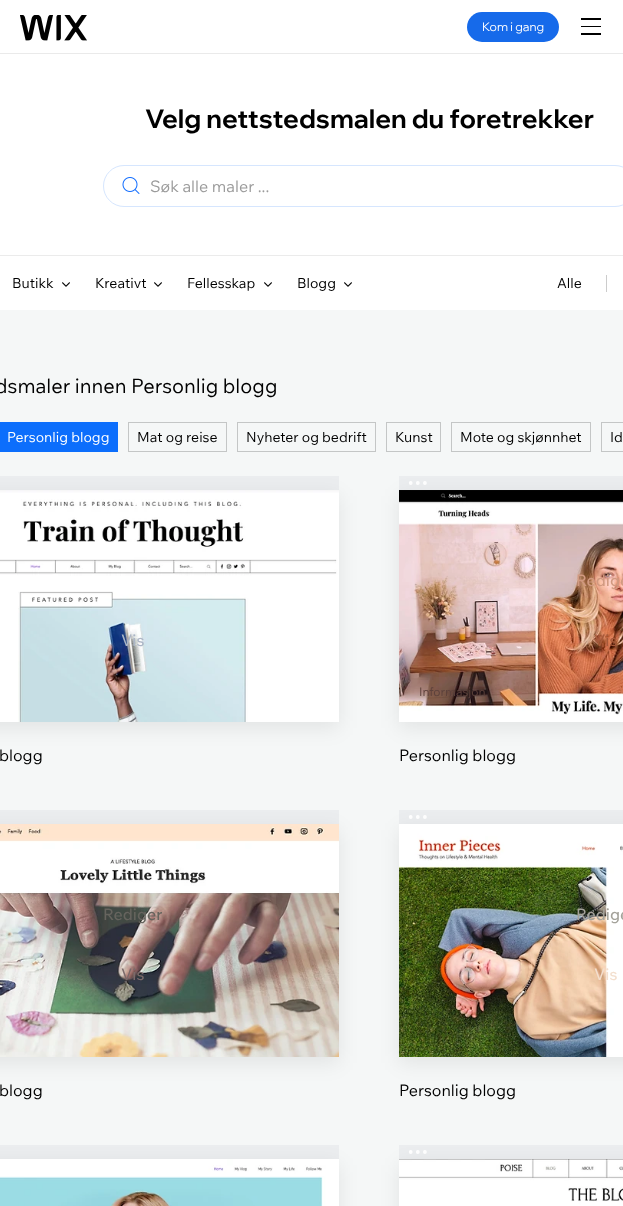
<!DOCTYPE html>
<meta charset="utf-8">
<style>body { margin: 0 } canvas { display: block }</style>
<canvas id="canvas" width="623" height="1206"></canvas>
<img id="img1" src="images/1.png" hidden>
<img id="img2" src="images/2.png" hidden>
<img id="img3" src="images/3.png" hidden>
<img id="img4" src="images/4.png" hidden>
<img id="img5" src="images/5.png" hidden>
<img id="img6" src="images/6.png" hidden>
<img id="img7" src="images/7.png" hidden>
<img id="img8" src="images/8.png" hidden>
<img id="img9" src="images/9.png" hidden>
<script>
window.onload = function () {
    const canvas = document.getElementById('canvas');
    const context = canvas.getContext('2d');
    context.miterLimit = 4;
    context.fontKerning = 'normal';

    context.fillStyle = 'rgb(255, 255, 255)';
    context.fillRect(0, 0, 623, 1206);
    context.fillStyle = 'rgb(234, 234, 234)';
    context.fillRect(0, 53, 623, 1);
    context.drawImage(document.getElementById('img1'), 20, 15, 67, 26);
    context.fillStyle = 'rgb(22, 106, 234)';
    context.beginPath();
    context.roundRect(467, 12, 92, 30, 15);
    context.fill();
    context.fillStyle = 'rgb(0, 0, 0)';
    context.fillRect(581, 26, 20, 1);
    context.fillRect(581, 18, 20, 2);
    context.fillRect(581, 33, 20, 2);
    context.fillStyle = 'rgb(235, 235, 235)';
    context.fillRect(0, 255, 623, 1);
    context.beginPath();
    context.roundRect(103.5, 165.5, 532, 41, 20.5);
    context.strokeStyle = 'rgb(214, 230, 254)';
    context.stroke();
    context.drawImage(document.getElementById('img2'), 122, 177, 18, 17);
    context.drawImage(document.getElementById('img3'), 62, 282, 8, 5);
    context.drawImage(document.getElementById('img3'), 154, 282, 8, 5);
    context.drawImage(document.getElementById('img3'), 264, 282, 8, 5);
    context.drawImage(document.getElementById('img3'), 344, 282, 8, 5);
    context.fillStyle = 'rgb(204, 204, 204)';
    context.fillRect(606, 275, 1, 17);
    context.fillStyle = 'rgb(245, 247, 247)';
    context.fillRect(0, 310, 623, 896);
    context.fillStyle = 'rgb(12, 110, 252)';
    context.fillRect(0, 422, 118, 30);
    context.strokeStyle = 'rgb(196, 198, 198)';
    context.strokeRect(128.5, 422.5, 98, 29);
    context.strokeRect(237.5, 422.5, 138, 29);
    context.strokeRect(386.5, 422.5, 54, 29);
    context.strokeRect(451.5, 422.5, 139, 29);
    context.strokeRect(601.5, 422.5, 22, 29);
    context.fillStyle = 'rgb(235, 237, 239)';
    context.fillRect(0, 476, 339, 14);
    context.fillStyle = 'rgba(0, 0, 0, 0.08)';
    context.filter = 'blur(10px)';
    context.beginPath();
    context.rect(-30, 496, 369, 232);
    context.fill();
    context.filter = 'none';
    context.drawImage(document.getElementById('img4'), 0, 490, 339, 232);
    context.fillStyle = 'rgb(235, 237, 239)';
    context.fillRect(399, 476, 224, 14);
    context.fillStyle = 'rgb(255, 255, 255)';
    context.beginPath();
    context.arc(410.7, 483, 1.9, 0, 2 * Math.PI);
    context.fill();
    context.beginPath();
    context.arc(417.8, 483, 1.9, 0, 2 * Math.PI);
    context.fill();
    context.beginPath();
    context.arc(424.9, 483, 1.9, 0, 2 * Math.PI);
    context.fill();
    context.fillStyle = 'rgba(0, 0, 0, 0.08)';
    context.filter = 'blur(10px)';
    context.beginPath();
    context.rect(399, 496, 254, 232);
    context.fill();
    context.filter = 'none';
    context.drawImage(document.getElementById('img5'), 399, 490, 224, 232);
    context.fillStyle = 'rgb(235, 237, 239)';
    context.fillRect(0, 810, 339, 14);
    context.fillStyle = 'rgba(0, 0, 0, 0.08)';
    context.filter = 'blur(10px)';
    context.beginPath();
    context.rect(-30, 830, 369, 233);
    context.fill();
    context.filter = 'none';
    context.drawImage(document.getElementById('img6'), 0, 824, 339, 233);
    context.fillStyle = 'rgb(235, 237, 239)';
    context.fillRect(399, 810, 224, 14);
    context.fillStyle = 'rgb(255, 255, 255)';
    context.beginPath();
    context.arc(410.7, 817, 1.9, 0, 2 * Math.PI);
    context.fill();
    context.beginPath();
    context.arc(417.8, 817, 1.9, 0, 2 * Math.PI);
    context.fill();
    context.beginPath();
    context.arc(424.9, 817, 1.9, 0, 2 * Math.PI);
    context.fill();
    context.fillStyle = 'rgba(0, 0, 0, 0.08)';
    context.filter = 'blur(10px)';
    context.beginPath();
    context.rect(399, 830, 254, 233);
    context.fill();
    context.filter = 'none';
    context.drawImage(document.getElementById('img7'), 399, 824, 224, 233);
    context.fillStyle = 'rgb(235, 237, 239)';
    context.fillRect(0, 1145, 339, 14);
    context.fillStyle = 'rgba(0, 0, 0, 0.08)';
    context.filter = 'blur(10px)';
    context.beginPath();
    context.rect(-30, 1165, 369, 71);
    context.fill();
    context.filter = 'none';
    context.drawImage(document.getElementById('img8'), 0, 1159, 339, 47);
    context.fillStyle = 'rgb(235, 237, 239)';
    context.fillRect(399, 1145, 224, 14);
    context.fillStyle = 'rgb(255, 255, 255)';
    context.beginPath();
    context.arc(410.7, 1152, 1.9, 0, 2 * Math.PI);
    context.fill();
    context.beginPath();
    context.arc(417.8, 1152, 1.9, 0, 2 * Math.PI);
    context.fill();
    context.beginPath();
    context.arc(424.9, 1152, 1.9, 0, 2 * Math.PI);
    context.fill();
    context.fillStyle = 'rgba(0, 0, 0, 0.08)';
    context.filter = 'blur(10px)';
    context.beginPath();
    context.rect(399, 1165, 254, 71);
    context.fill();
    context.filter = 'none';
    context.drawImage(document.getElementById('img9'), 399, 1159, 224, 47);
    context.font = '12px Wix Madefor Display';
    context.fillStyle = 'rgb(255, 255, 255)';
    context.fillText('Kom i gang', 482, 31);
    context.font = 'bold 26px Wix Madefor Display';
    context.fillStyle = 'rgb(0, 0, 0)';
    context.fillText('Velg nettstedsmalen du foretrekker', 145, 128);
    context.font = '16px Wix Madefor Text';
    context.fillStyle = 'rgb(155, 155, 155)';
    context.fillText('Søk alle maler ...', 150, 192);
    context.font = '14px Wix Madefor Text';
    context.fillStyle = 'rgb(0, 0, 0)';
    context.fillText('Butikk', 12, 288);
    context.fillText('Kreativt', 95, 288);
    context.fillText('Fellesskap', 187, 288);
    context.fillText('Blogg', 297, 288);
    context.fillText('Alle', 557, 288);
    context.font = '20px Wix Madefor Text';
    context.fillText('dsmaler innen Personlig blogg', -5, 393);
    context.font = '14px Wix Madefor Text';
    context.fillStyle = 'rgb(255, 255, 255)';
    context.fillText('Personlig blogg', 7, 442);
    context.fillStyle = 'rgb(0, 0, 0)';
    context.fillText('Mat og reise', 137, 442);
    context.fillText('Nyheter og bedrift', 246, 442);
    context.fillText('Kunst', 395, 442);
    context.fillText('Mote og skjønnhet', 460, 442);
    context.fillText('Id', 610, 442);
    context.font = '500 16px Wix Madefor Text';
    context.fillStyle = 'rgb(172, 182, 198)';
    context.fillText('Vis', 121, 646);
    context.font = '16px Wix Madefor Text';
    context.fillStyle = 'rgb(0, 0, 0)';
    context.fillText('blogg', -1, 761);
    context.font = '500 16px Wix Madefor Text';
    context.fillStyle = 'rgb(209, 153, 128)';
    context.fillText('Redige', 576, 586);
    context.fillStyle = 'rgb(166, 90, 58)';
    context.fillText('Vis', 594, 646);
    context.font = '12px Wix Madefor Text';
    context.fillStyle = 'rgb(92, 65, 59)';
    context.fillText('Informasjon', 419, 696);
    context.font = '16px Wix Madefor Text';
    context.fillStyle = 'rgb(0, 0, 0)';
    context.fillText('Personlig blogg', 399, 761);
    context.font = '500 16px Wix Madefor Text';
    context.fillStyle = 'rgb(102, 100, 94)';
    context.fillText('Rediger', 103, 920);
    context.fillStyle = 'rgb(123, 106, 106)';
    context.fillText('Vis', 121, 980);
    context.font = '16px Wix Madefor Text';
    context.fillStyle = 'rgb(0, 0, 0)';
    context.fillText('blogg', -1, 1096);
    context.font = '500 16px Wix Madefor Text';
    context.fillStyle = 'rgb(164, 162, 154)';
    context.fillText('Redige', 576, 920);
    context.fillStyle = 'rgb(243, 223, 206)';
    context.fillText('Vis', 594, 980);
    context.font = '16px Wix Madefor Text';
    context.fillStyle = 'rgb(0, 0, 0)';
    context.fillText('Personlig blogg', 399, 1096);
};
</script>
